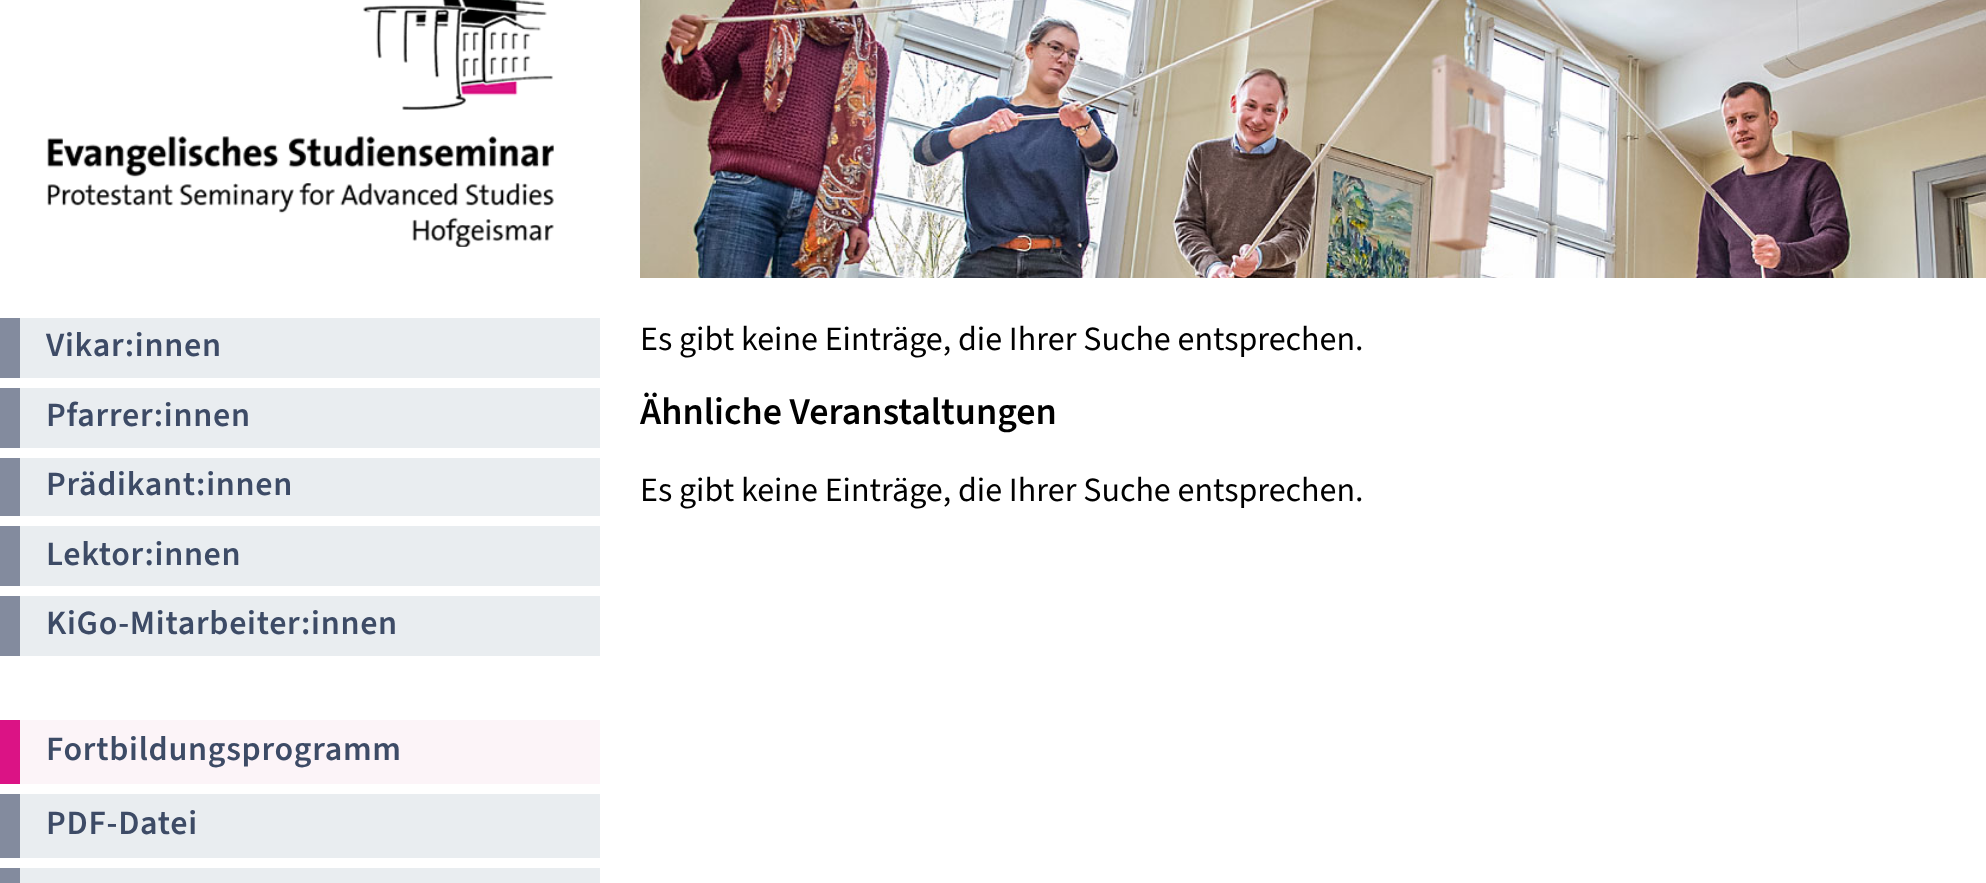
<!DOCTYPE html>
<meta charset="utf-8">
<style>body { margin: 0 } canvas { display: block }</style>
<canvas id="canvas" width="1986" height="883"></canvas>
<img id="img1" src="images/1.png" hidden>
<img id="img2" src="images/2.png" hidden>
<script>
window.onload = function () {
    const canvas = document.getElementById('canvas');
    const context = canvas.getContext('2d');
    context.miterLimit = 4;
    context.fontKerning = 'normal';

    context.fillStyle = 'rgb(255, 255, 255)';
    context.fillRect(0, 0, 1986, 883);
    context.drawImage(document.getElementById('img1'), 47, 0, 507, 247);
    context.drawImage(document.getElementById('img2'), 640, 0, 1346, 278);
    context.fillStyle = 'rgb(233, 237, 240)';
    context.fillRect(20, 318, 580, 60);
    context.fillStyle = 'rgb(131, 139, 158)';
    context.fillRect(0, 318, 20, 60);
    context.fillStyle = 'rgb(233, 237, 240)';
    context.fillRect(20, 388, 580, 60);
    context.fillStyle = 'rgb(131, 139, 158)';
    context.fillRect(0, 388, 20, 60);
    context.fillStyle = 'rgb(233, 237, 240)';
    context.fillRect(20, 458, 580, 58);
    context.fillStyle = 'rgb(131, 139, 158)';
    context.fillRect(0, 458, 20, 58);
    context.fillStyle = 'rgb(233, 237, 240)';
    context.fillRect(20, 526, 580, 60);
    context.fillStyle = 'rgb(131, 139, 158)';
    context.fillRect(0, 526, 20, 60);
    context.fillStyle = 'rgb(233, 237, 240)';
    context.fillRect(20, 596, 580, 60);
    context.fillStyle = 'rgb(131, 139, 158)';
    context.fillRect(0, 596, 20, 60);
    context.fillStyle = 'rgb(252, 244, 248)';
    context.fillRect(20, 720, 580, 64);
    context.fillStyle = 'rgb(219, 19, 133)';
    context.fillRect(0, 720, 20, 64);
    context.fillStyle = 'rgb(233, 237, 240)';
    context.fillRect(20, 794, 580, 64);
    context.fillStyle = 'rgb(131, 139, 158)';
    context.fillRect(0, 794, 20, 64);
    context.fillStyle = 'rgb(233, 237, 240)';
    context.fillRect(20, 868, 580, 15);
    context.fillStyle = 'rgb(131, 139, 158)';
    context.fillRect(0, 868, 20, 15);
    context.letterSpacing = '0.7px';
    context.font = '200 34px "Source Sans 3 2"';
    context.fillStyle = 'rgb(61, 75, 102)';
    context.fillText('Vikar:innen', 46, 356);
    context.fillText('Pfarrer:innen', 46, 426);
    context.fillText('Prädikant:innen', 46, 495);
    context.fillText('Lektor:innen', 46, 565);
    context.fillText('KiGo-Mitarbeiter:innen', 46, 634);
    context.fillText('Fortbildungsprogramm', 46, 760);
    context.fillText('PDF-Datei', 46, 834);
    context.letterSpacing = '0px';
    context.font = '200 34px "Source Sans 3"';
    context.fillStyle = 'rgb(0, 0, 0)';
    context.fillText('Es gibt keine Einträge, die Ihrer Suche entsprechen.', 640, 350);
    context.font = '200 38px "Source Sans 3 2"';
    context.fillText('Ähnliche Veranstaltungen', 640, 424);
    context.font = '200 34px "Source Sans 3"';
    context.fillText('Es gibt keine Einträge, die Ihrer Suche entsprechen.', 640, 501);
};
</script>
